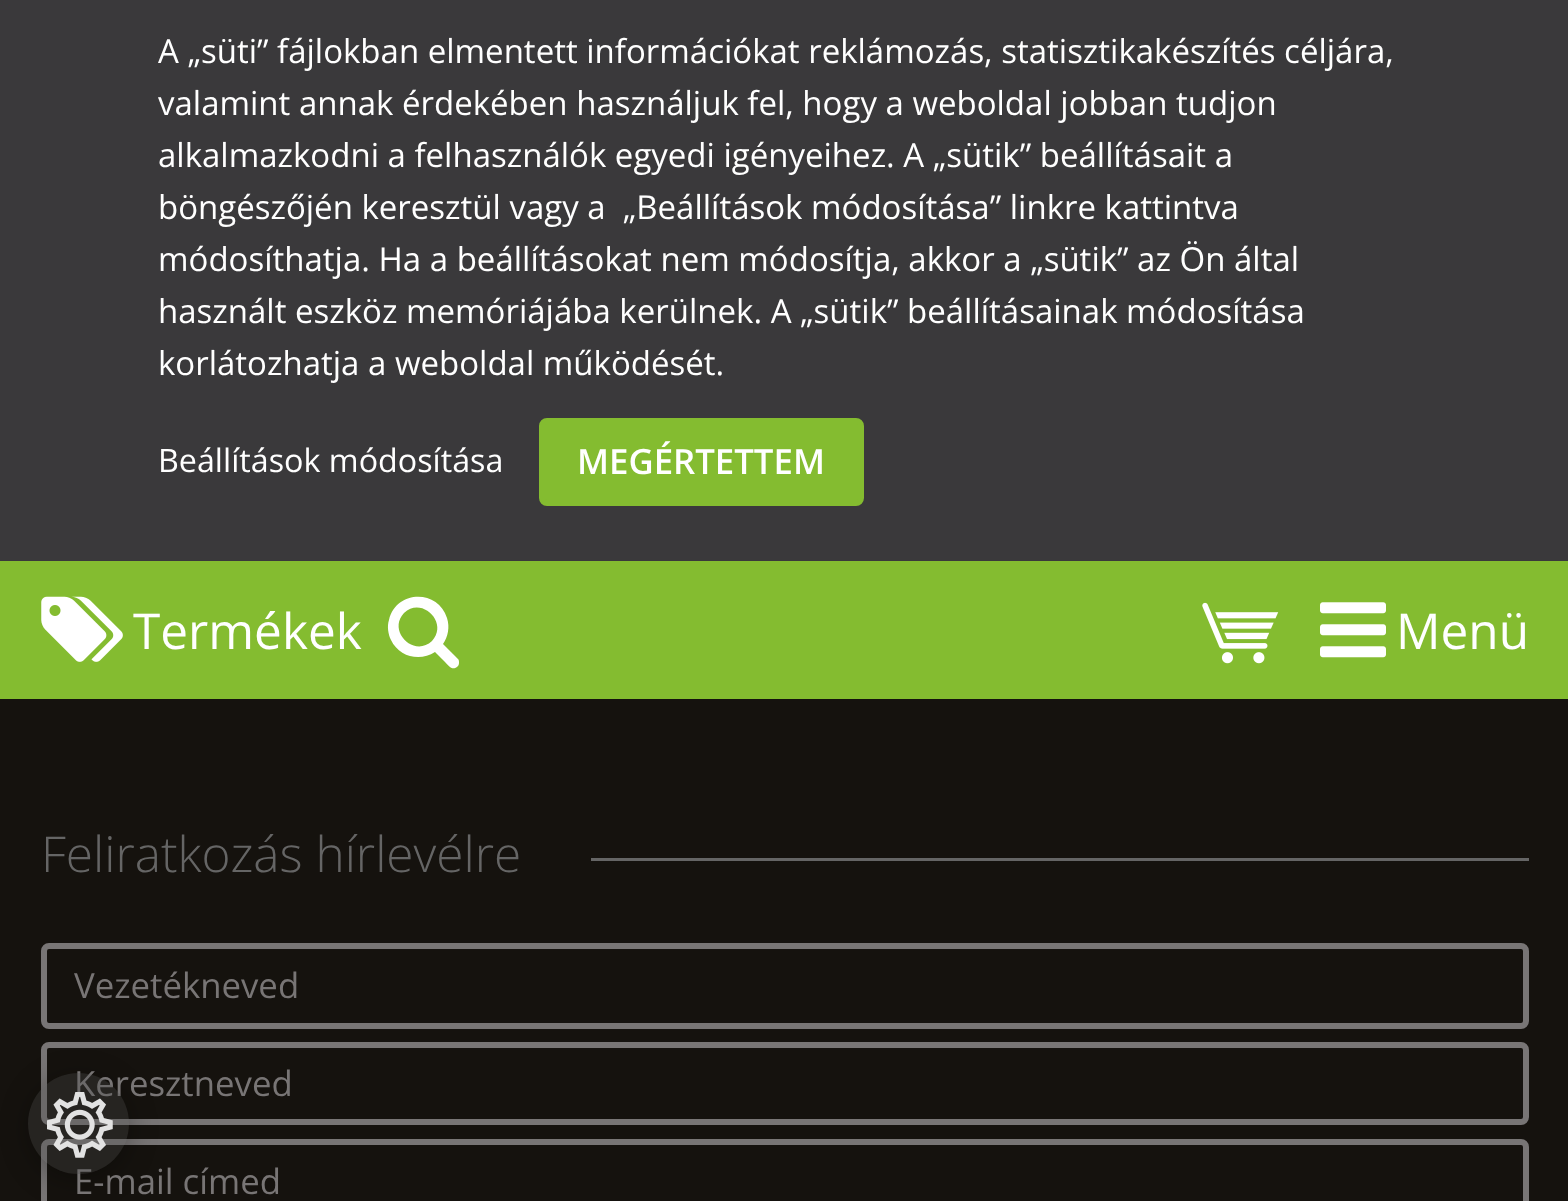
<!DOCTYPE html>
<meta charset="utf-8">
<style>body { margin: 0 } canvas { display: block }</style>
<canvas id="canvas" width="1568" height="1201"></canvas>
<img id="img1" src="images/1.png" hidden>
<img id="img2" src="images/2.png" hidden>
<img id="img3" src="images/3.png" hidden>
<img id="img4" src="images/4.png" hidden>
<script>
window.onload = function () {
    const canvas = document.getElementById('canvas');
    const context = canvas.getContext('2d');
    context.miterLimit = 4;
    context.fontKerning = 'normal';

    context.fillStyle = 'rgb(21, 18, 14)';
    context.fillRect(0, 0, 1568, 1201);
    context.fillStyle = 'rgb(58, 57, 59)';
    context.fillRect(0, 0, 1568, 561);
    context.fillStyle = 'rgb(132, 188, 48)';
    context.beginPath();
    context.roundRect(542, 421, 319, 82, 5);
    context.fill();
    context.strokeStyle = 'rgb(132, 188, 48)';
    context.lineWidth = 6;
    context.stroke();
    context.fillRect(0, 561, 1568, 138);
    context.drawImage(document.getElementById('img1'), 41, 596, 82, 66);
    context.fillStyle = 'rgb(255, 255, 255)';
    context.beginPath();
    context.moveTo(432, 641);
    context.bezierCurveTo(449, 623, 422, 596, 404, 613);
    context.bezierCurveTo(387, 631, 414, 658, 432, 641);
    context.closePath();
    context.moveTo(459, 663);
    context.bezierCurveTo(459, 665, 458, 666, 457, 667);
    context.bezierCurveTo(452, 671, 448, 665, 445, 662);
    context.lineTo(435, 652);
    context.bezierCurveTo(420, 662, 399, 657, 391, 640);
    context.bezierCurveTo(388, 634, 387, 626, 389, 620);
    context.bezierCurveTo(396, 590, 438, 589, 447, 618);
    context.bezierCurveTo(450, 627, 448, 637, 443, 644);
    context.lineTo(458, 659);
    context.bezierCurveTo(459, 660, 459, 661, 459, 663);
    context.closePath();
    context.fill();
    context.drawImage(document.getElementById('img2'), 1202, 602, 77, 62);
    context.drawImage(document.getElementById('img3'), 1320, 602, 66, 56);
    context.fillStyle = 'rgb(101, 101, 101)';
    context.fillRect(591, 858, 938, 3);
    context.beginPath();
    context.roundRect(44, 946, 1482, 80, 5);
    context.strokeStyle = 'rgb(120, 117, 117)';
    context.stroke();
    context.beginPath();
    context.roundRect(44, 1045, 1482, 77, 5);
    context.stroke();
    context.beginPath();
    context.roundRect(44, 1142, 1482, 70, 5);
    context.stroke();
    context.save();
    context.beginPath();
    context.moveTo(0, 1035);
    context.lineTo(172, 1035);
    context.lineTo(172, 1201);
    context.lineTo(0, 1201);
    context.closePath();
    context.moveTo(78.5, 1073);
    context.bezierCurveTo(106.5, 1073, 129, 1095.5, 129, 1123.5);
    context.bezierCurveTo(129, 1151.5, 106.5, 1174, 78.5, 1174);
    context.bezierCurveTo(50.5, 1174, 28, 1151.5, 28, 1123.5);
    context.bezierCurveTo(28, 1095.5, 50.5, 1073, 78.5, 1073);
    context.closePath();
    context.clip('evenodd');
    context.fillStyle = 'rgba(0, 0, 0, 0.3)';
    context.filter = 'blur(14px)';
    context.beginPath();
    context.roundRect(28, 1078, 101, 102, 50.5);
    context.fill();
    context.filter = 'none';
    context.restore();
    context.font = '33px Open Sans';
    context.fillStyle = 'rgb(255, 255, 255)';
    context.fillText('A „süti” fájlokban elmentett információkat reklámozás, statisztikakészítés céljára,', 158, 63);
    context.fillText('valamint annak érdekében használjuk fel, hogy a weboldal jobban tudjon', 158, 115);
    context.fillText('alkalmazkodni a felhasználók egyedi igényeihez. A „sütik” beállításait a', 158, 167);
    context.fillText('böngészőjén keresztül vagy a  „Beállítások módosítása” linkre kattintva', 158, 219);
    context.fillText('módosíthatja. Ha a beállításokat nem módosítja, akkor a „sütik” az Ön által', 158, 271);
    context.fillText('használt eszköz memóriájába kerülnek. A „sütik” beállításainak módosítása', 158, 323);
    context.fillText('korlátozhatja a weboldal működését.', 158, 375);
    context.font = '32.25px Open Sans';
    context.fillText('Beállítások módosítása', 158, 472);
    context.font = '600 34.75px Open Sans';
    context.fillText('MEGÉRTETTEM', 577, 474);
    context.font = '49.5px Open Sans';
    context.fillText('Termékek', 133, 649);
    context.fillText('Menü', 1396, 649);
    context.font = '300 49.5px Open Sans';
    context.fillStyle = 'rgb(101, 101, 101)';
    context.fillText('Feliratkozás hírlevélre', 41, 872);
    context.font = '34.75px Open Sans';
    context.fillStyle = 'rgb(120, 117, 117)';
    context.fillText('Vezetékneved', 74, 998);
    context.fillText('Keresztneved', 74, 1096);
    context.fillText('E-mail címed', 74, 1194);
    context.fillStyle = 'rgba(78, 78, 78, 0.3)';
    context.beginPath();
    context.arc(78.5, 1123.5, 50.5, 0, 2 * Math.PI);
    context.fill();
    context.drawImage(document.getElementById('img4'), 47, 1092, 66, 66);
};
</script>
